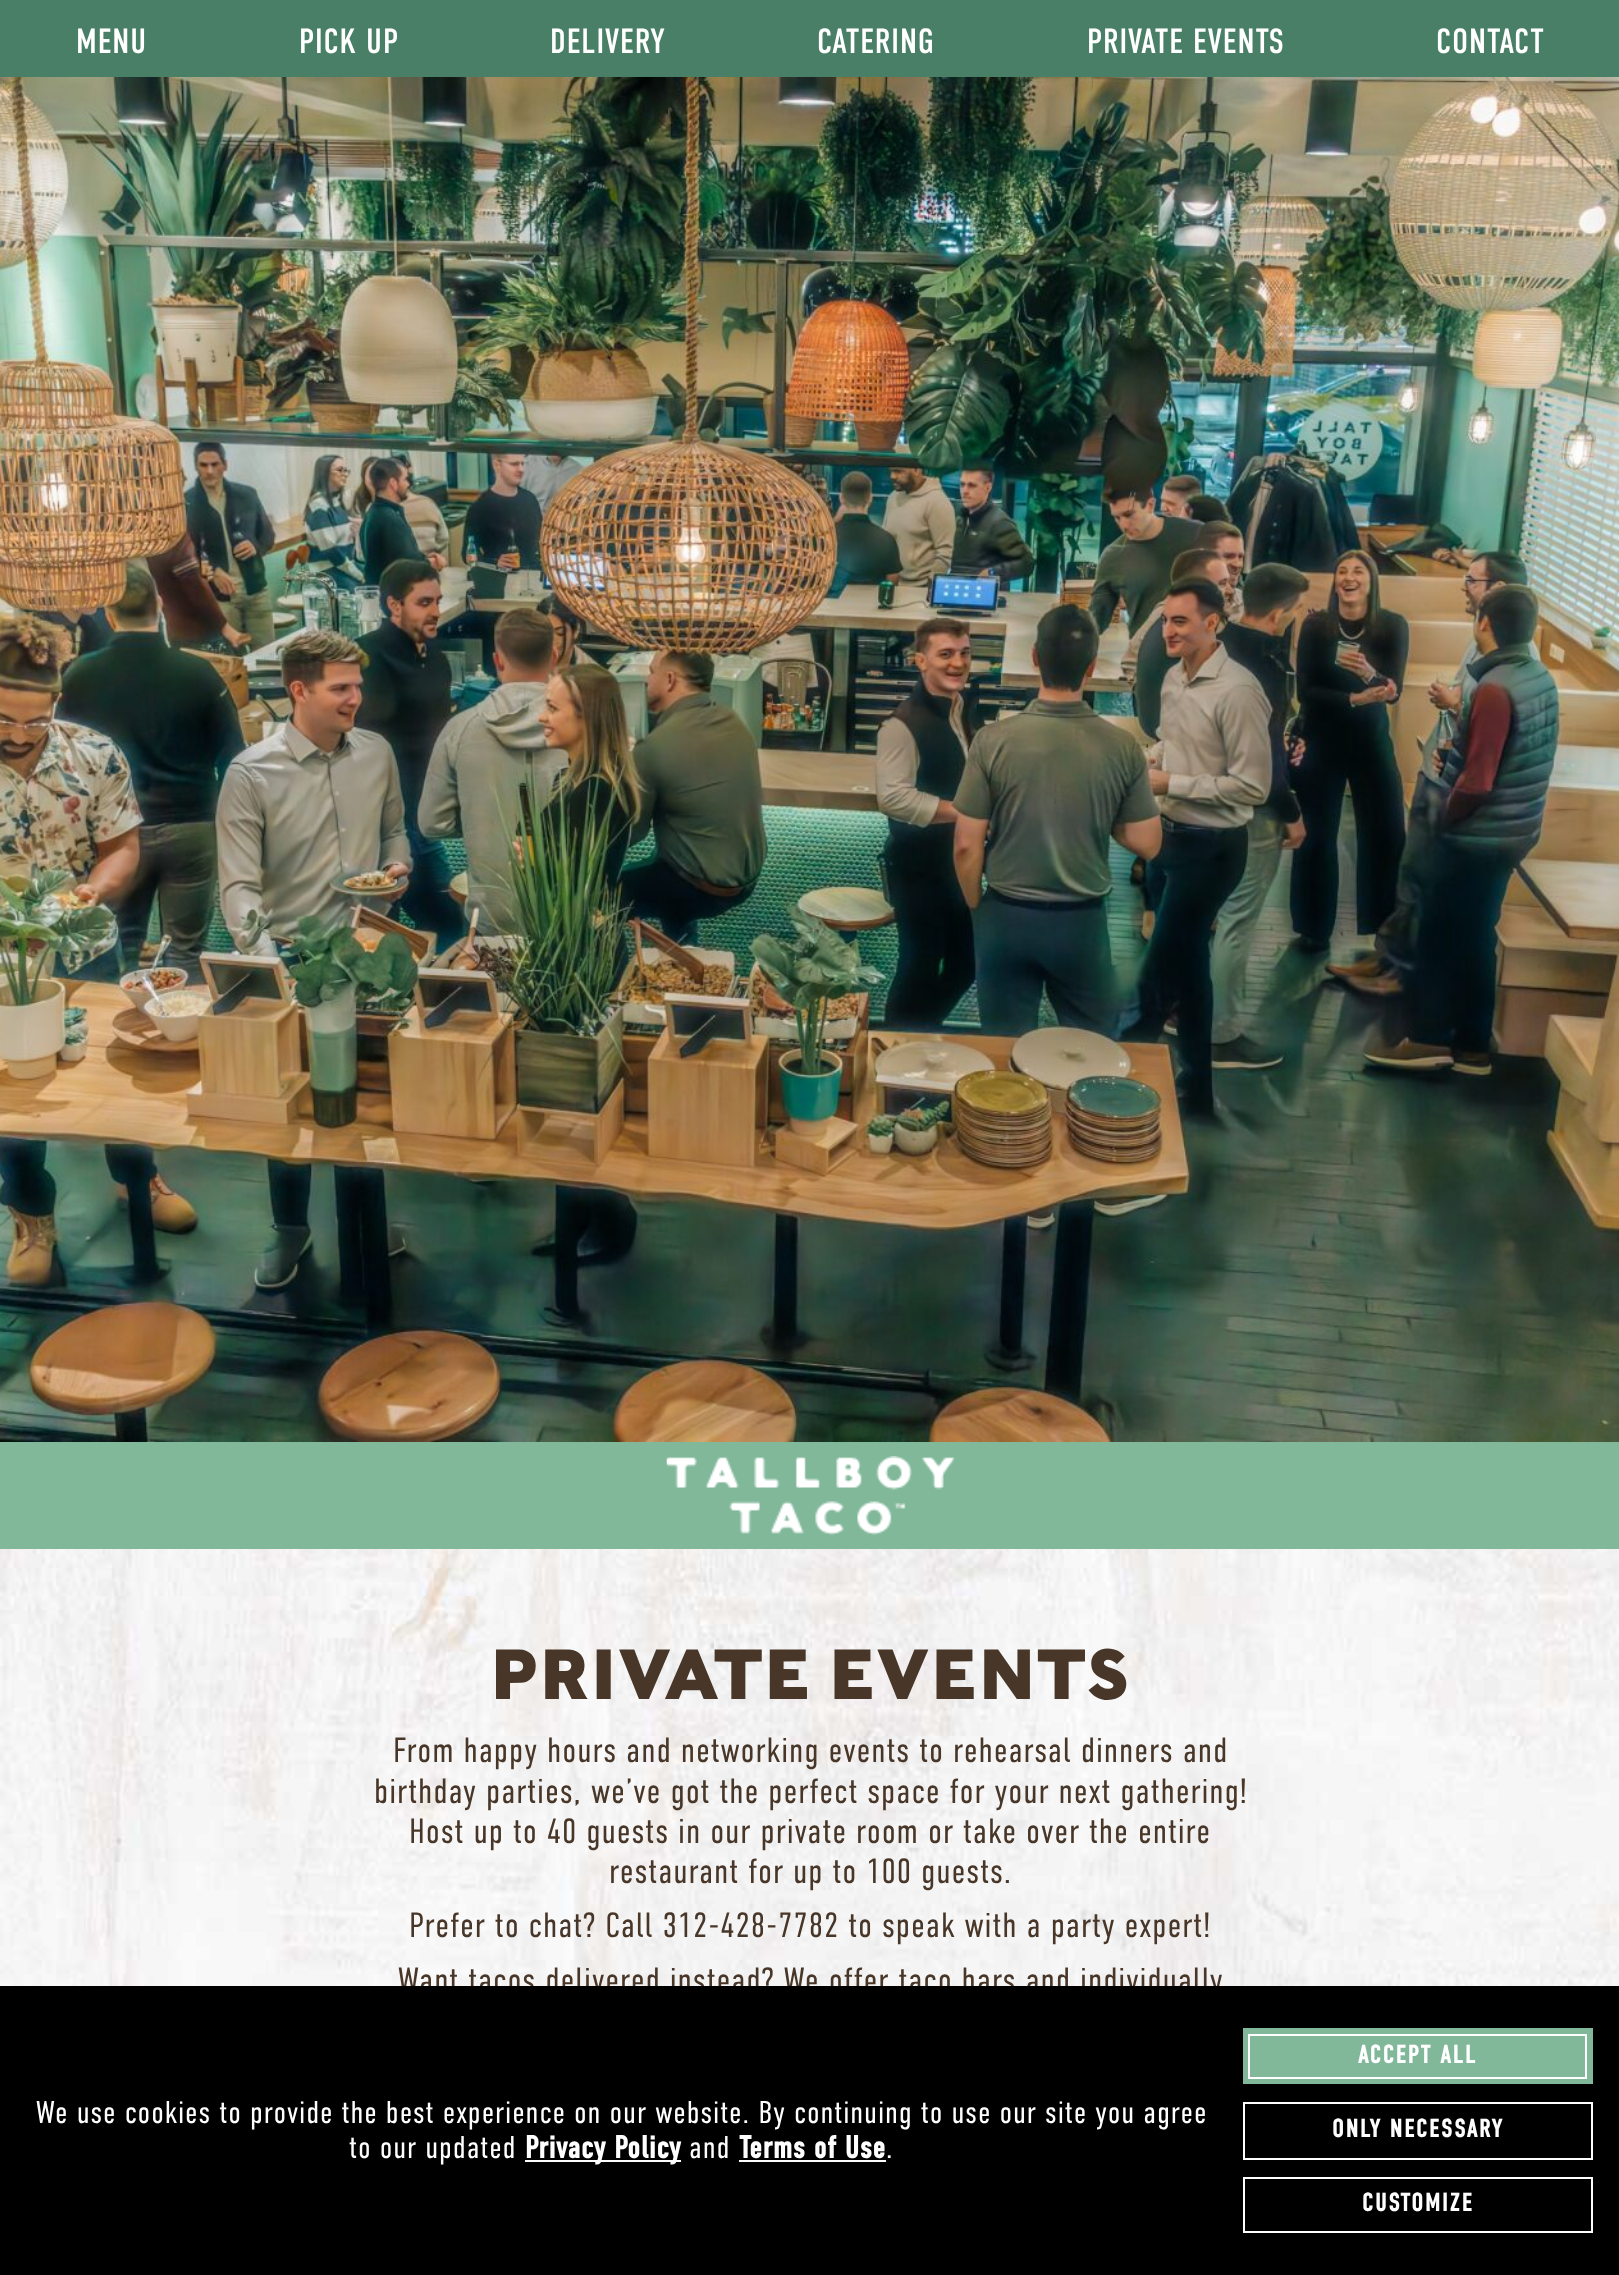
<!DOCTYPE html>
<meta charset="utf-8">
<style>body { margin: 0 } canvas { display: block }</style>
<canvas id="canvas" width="1619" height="2275"></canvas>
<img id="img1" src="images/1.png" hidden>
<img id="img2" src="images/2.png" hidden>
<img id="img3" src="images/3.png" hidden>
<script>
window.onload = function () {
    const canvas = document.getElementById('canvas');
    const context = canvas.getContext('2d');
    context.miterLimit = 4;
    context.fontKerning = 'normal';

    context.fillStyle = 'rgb(255, 255, 255)';
    context.fillRect(0, 0, 1619, 2275);
    context.drawImage(document.getElementById('img1'), 0, 1549, 1619, 437);
    context.fillStyle = 'rgb(72, 127, 102)';
    context.fillRect(0, 0, 1619, 77);
    context.drawImage(document.getElementById('img2'), 0, 77, 1619, 1365);
    context.fillStyle = 'rgb(129, 184, 154)';
    context.fillRect(0, 1442, 1619, 107);
    context.drawImage(document.getElementById('img3'), 666, 1456, 288, 79);
    context.letterSpacing = '0.88px';
    context.font = '35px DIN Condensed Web';
    context.fillStyle = 'rgb(255, 255, 255)';
    context.fillText('MENU', 76, 53);
    context.fillText('PICK UP', 299, 53);
    context.fillText('DELIVERY', 550, 53);
    context.fillText('CATERING', 817, 53);
    context.fillText('PRIVATE EVENTS', 1087, 53);
    context.fillText('CONTACT', 1436, 53);
    context.font = 'bold 70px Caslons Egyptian';
    context.fillStyle = 'rgb(72, 55, 41)';
    context.fillText('PRIVATE EVENTS', 490, 1699);
    context.font = '300 35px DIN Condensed';
    context.fillText('From happy hours and networking events to rehearsal dinners and', 393, 1762);
    context.fillText('birthday parties, we’ve got the perfect space for your next gathering!', 374, 1803);
    context.fillText('Host up to 40 guests in our private room or take over the entire', 409, 1843);
    context.fillText('restaurant for up to 100 guests.', 609, 1883);
    context.fillText('Prefer to chat? Call 312-428-7782 to speak with a party expert!', 409, 1937);
    context.fillText('Want tacos delivered instead? We offer taco bars and individually', 398, 1992);
    context.fillStyle = 'rgb(0, 0, 0)';
    context.fillRect(0, 1986, 1619, 289);
    context.font = '300 31.5px DIN Condensed';
    context.fillStyle = 'rgb(255, 255, 255)';
    context.fillText('We use cookies to provide the best experience on our website. By continuing to use our site you agree', 36, 2123);
    context.fillText('to our updated', 349, 2158);
    context.fillRect(525, 2160, 156, 2);
    context.font = 'bold 31.5px DIN Condensed Web';
    context.fillText('Privacy Policy', 525, 2158);
    context.font = '300 31.5px DIN Condensed';
    context.fillText('and', 689, 2158);
    context.font = 'bold 31.5px DIN Condensed Web';
    context.fillText('Terms of Use', 739, 2158);
    context.fillRect(739, 2160, 147, 2);
    context.font = '300 31.5px DIN Condensed';
    context.fillText('.', 886, 2158);
    context.fillStyle = 'rgb(129, 184, 154)';
    context.fillRect(1243, 2028, 350, 56);
    context.strokeStyle = 'rgb(255, 255, 255)';
    context.lineWidth = 2;
    context.strokeRect(1249, 2035, 337, 43);
    context.letterSpacing = '2px';
    context.font = 'bold 25.25px DIN Condensed Web';
    context.fillStyle = 'rgb(255, 255, 255)';
    context.fillText('ACCEPT ALL', 1358, 2063);
    context.strokeRect(1244, 2103, 348, 56);
    context.fillText('ONLY NECESSARY', 1332, 2137);
    context.strokeRect(1244, 2178, 348, 54);
    context.fillText('CUSTOMIZE', 1362, 2211);
};
</script>
